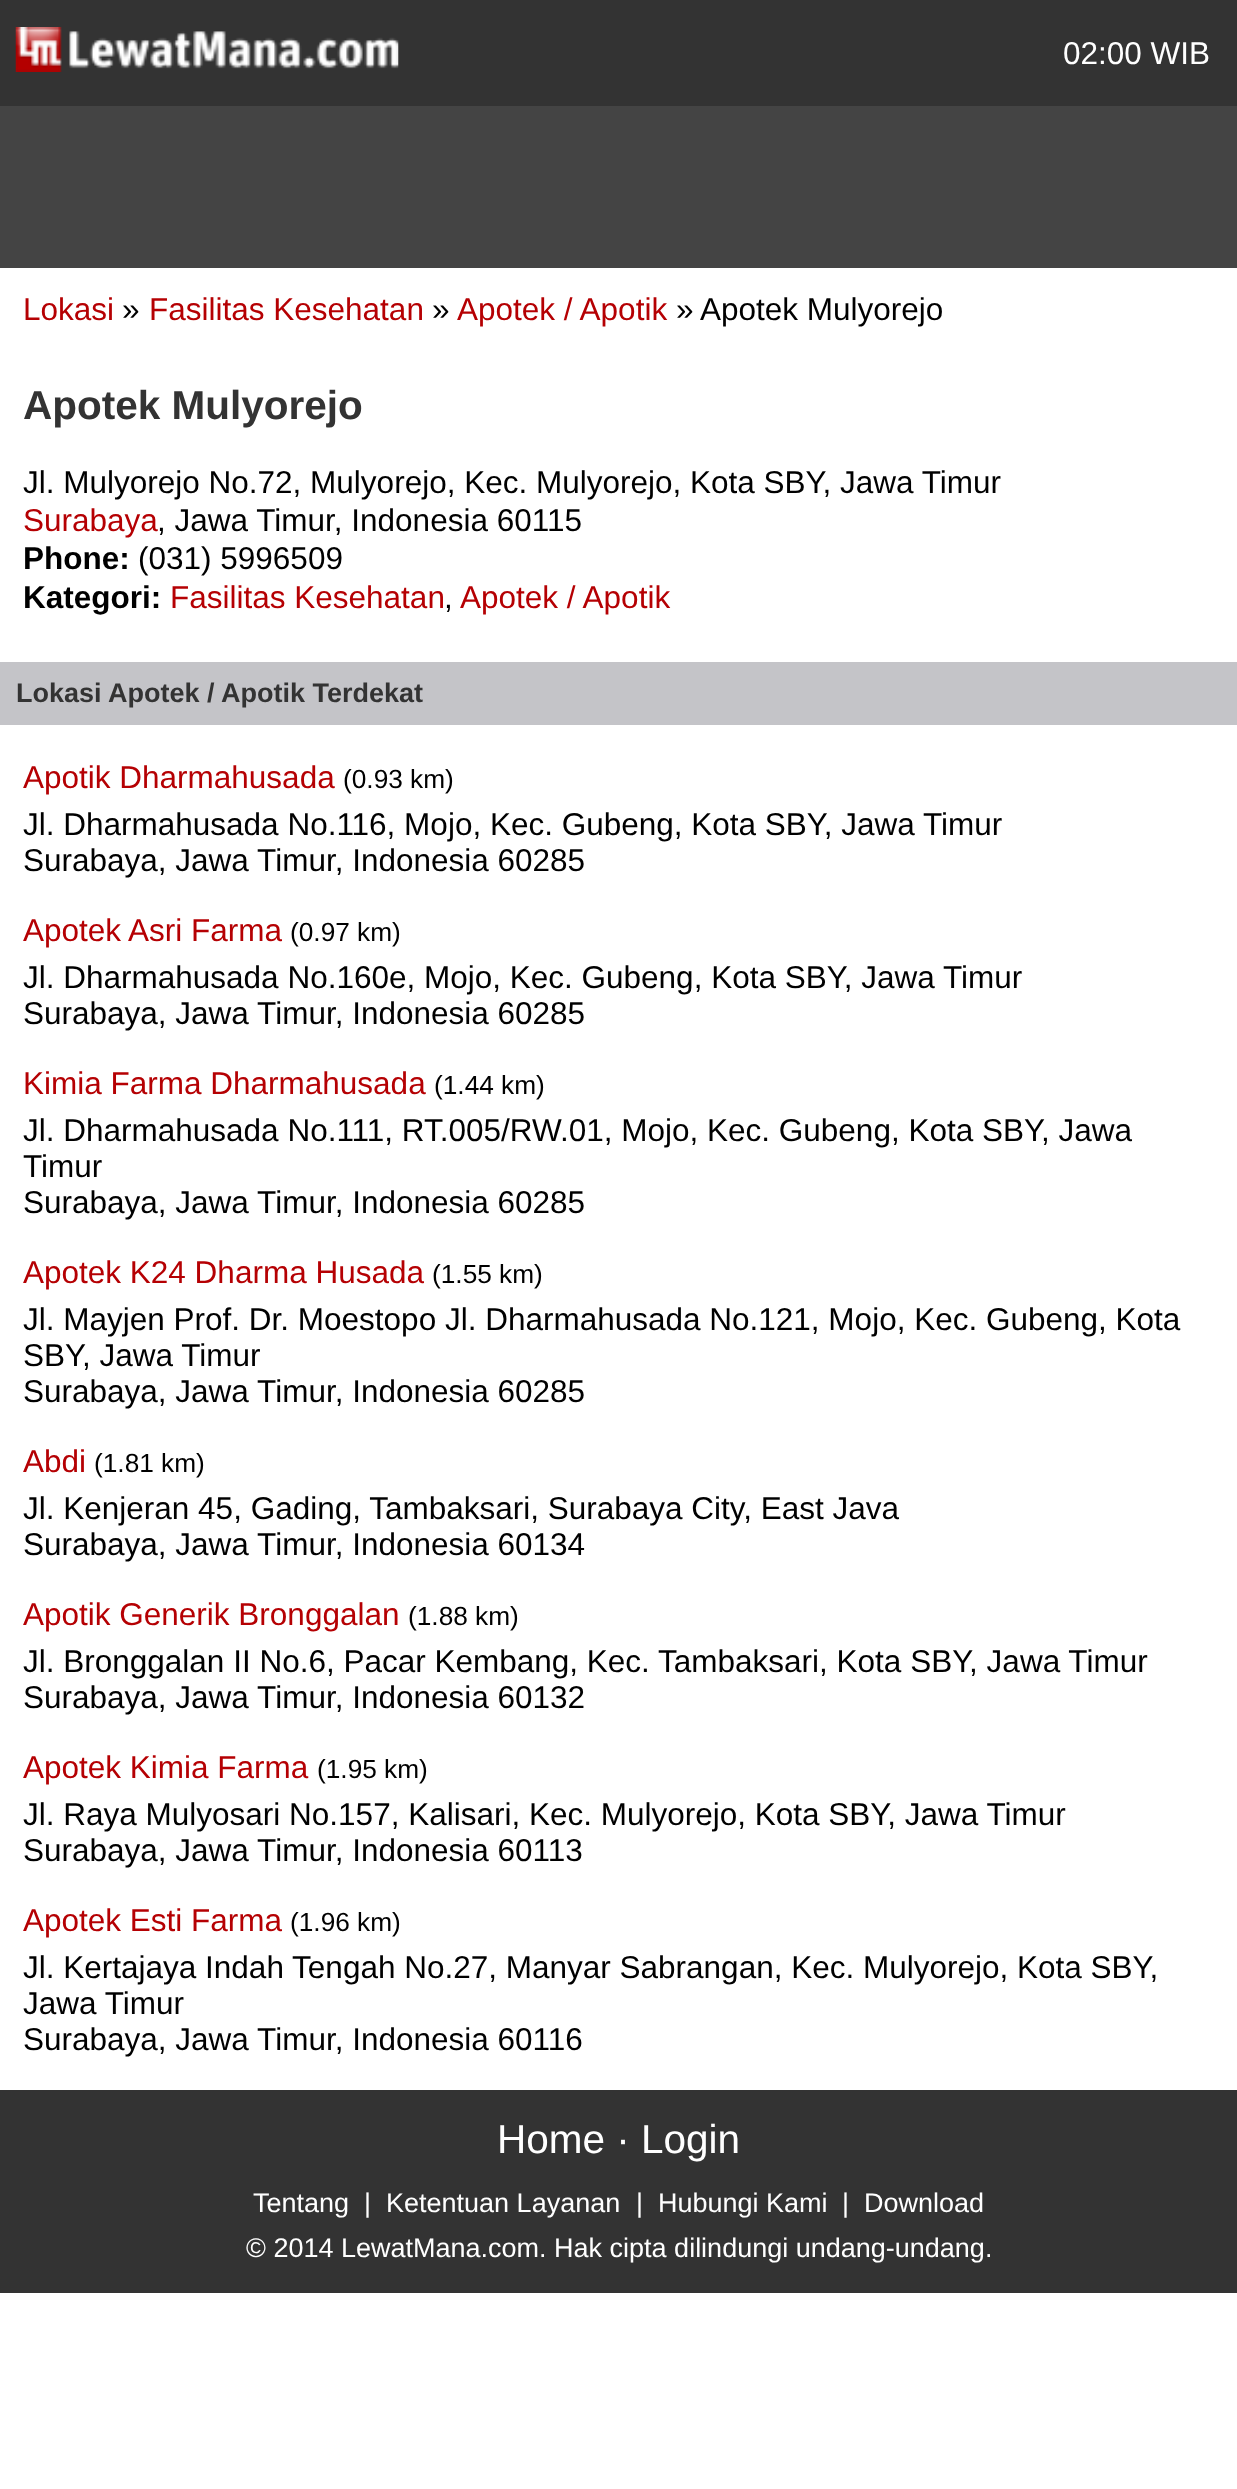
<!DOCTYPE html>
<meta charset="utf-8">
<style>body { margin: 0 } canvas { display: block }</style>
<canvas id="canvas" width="1237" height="2489"></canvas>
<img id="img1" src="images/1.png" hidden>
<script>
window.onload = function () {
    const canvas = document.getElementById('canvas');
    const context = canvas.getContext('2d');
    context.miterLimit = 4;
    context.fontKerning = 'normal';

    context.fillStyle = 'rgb(255, 255, 255)';
    context.fillRect(0, 0, 1237, 2489);
    context.fillStyle = 'rgb(51, 51, 51)';
    context.fillRect(0, 0, 1237, 106);
    context.drawImage(document.getElementById('img1'), 15, 27, 384, 45);
    context.fillStyle = 'rgb(68, 68, 68)';
    context.fillRect(0, 106, 1237, 162);
    context.fillStyle = 'rgb(196, 196, 200)';
    context.fillRect(0, 662, 1237, 63);
    context.fillStyle = 'rgb(51, 51, 51)';
    context.fillRect(0, 2090, 1237, 203);
    context.font = '31.5px Liberation Sans';
    context.fillStyle = 'rgb(255, 255, 255)';
    context.fillText('02:00 WIB', 1063, 64);
    context.fillStyle = 'rgb(181, 0, 3)';
    context.fillText('Lokasi', 23, 320);
    context.fillStyle = 'rgb(0, 0, 0)';
    context.fillText('»', 122, 320);
    context.fillStyle = 'rgb(181, 0, 3)';
    context.fillText('Fasilitas Kesehatan', 149, 320);
    context.fillStyle = 'rgb(0, 0, 0)';
    context.fillText('»', 432, 320);
    context.fillStyle = 'rgb(181, 0, 3)';
    context.fillText('Apotek / Apotik', 457, 320);
    context.fillStyle = 'rgb(0, 0, 0)';
    context.fillText('»', 676, 320);
    context.fillText('Apotek Mulyorejo', 700, 320);
    context.font = 'bold 40.5px Liberation Sans';
    context.fillStyle = 'rgb(51, 51, 51)';
    context.fillText('Apotek Mulyorejo', 23, 419);
    context.font = '31.5px Liberation Sans';
    context.fillStyle = 'rgb(0, 0, 0)';
    context.fillText('Jl. Mulyorejo No.72, Mulyorejo, Kec. Mulyorejo, Kota SBY, Jawa Timur', 23, 493);
    context.fillStyle = 'rgb(181, 0, 3)';
    context.fillText('Surabaya', 23, 531);
    context.fillStyle = 'rgb(0, 0, 0)';
    context.fillText(', Jawa Timur, Indonesia 60115', 157, 531);
    context.font = 'bold 31.5px Liberation Sans';
    context.fillText('Phone:', 23, 569);
    context.font = '31.5px Liberation Sans';
    context.fillText('(031) 5996509', 138, 569);
    context.font = 'bold 31.5px Liberation Sans';
    context.fillText('Kategori:', 23, 608);
    context.font = '31.5px Liberation Sans';
    context.fillStyle = 'rgb(181, 0, 3)';
    context.fillText('Fasilitas Kesehatan', 170, 608);
    context.fillStyle = 'rgb(0, 0, 0)';
    context.fillText(',', 444, 608);
    context.fillStyle = 'rgb(181, 0, 3)';
    context.fillText('Apotek / Apotik', 460, 608);
    context.font = 'bold 27px Liberation Sans';
    context.fillStyle = 'rgb(51, 51, 51)';
    context.fillText('Lokasi Apotek / Apotik Terdekat', 16, 702);
    context.font = '31.5px Liberation Sans';
    context.fillStyle = 'rgb(181, 0, 3)';
    context.fillText('Apotik Dharmahusada', 23, 788);
    context.font = '26.25px Liberation Sans';
    context.fillStyle = 'rgb(0, 0, 0)';
    context.fillText('(0.93 km)', 343, 788);
    context.font = '31.5px Liberation Sans';
    context.fillText('Jl. Dharmahusada No.116, Mojo, Kec. Gubeng, Kota SBY, Jawa Timur', 23, 835);
    context.fillText('Surabaya, Jawa Timur, Indonesia 60285', 23, 871);
    context.fillStyle = 'rgb(181, 0, 3)';
    context.fillText('Apotek Asri Farma', 23, 941);
    context.font = '26.25px Liberation Sans';
    context.fillStyle = 'rgb(0, 0, 0)';
    context.fillText('(0.97 km)', 290, 941);
    context.font = '31.5px Liberation Sans';
    context.fillText('Jl. Dharmahusada No.160e, Mojo, Kec. Gubeng, Kota SBY, Jawa Timur', 23, 988);
    context.fillText('Surabaya, Jawa Timur, Indonesia 60285', 23, 1024);
    context.fillStyle = 'rgb(181, 0, 3)';
    context.fillText('Kimia Farma Dharmahusada', 23, 1094);
    context.font = '26.25px Liberation Sans';
    context.fillStyle = 'rgb(0, 0, 0)';
    context.fillText('(1.44 km)', 434, 1094);
    context.font = '31.5px Liberation Sans';
    context.fillText('Jl. Dharmahusada No.111, RT.005/RW.01, Mojo, Kec. Gubeng, Kota SBY, Jawa', 23, 1141);
    context.fillText('Timur', 23, 1177);
    context.fillText('Surabaya, Jawa Timur, Indonesia 60285', 23, 1213);
    context.fillStyle = 'rgb(181, 0, 3)';
    context.fillText('Apotek K24 Dharma Husada', 23, 1283);
    context.font = '26.25px Liberation Sans';
    context.fillStyle = 'rgb(0, 0, 0)';
    context.fillText('(1.55 km)', 432, 1283);
    context.font = '31.5px Liberation Sans';
    context.fillText('Jl. Mayjen Prof. Dr. Moestopo Jl. Dharmahusada No.121, Mojo, Kec. Gubeng, Kota', 23, 1330);
    context.fillText('SBY, Jawa Timur', 23, 1366);
    context.fillText('Surabaya, Jawa Timur, Indonesia 60285', 23, 1402);
    context.fillStyle = 'rgb(181, 0, 3)';
    context.fillText('Abdi', 23, 1472);
    context.font = '26.25px Liberation Sans';
    context.fillStyle = 'rgb(0, 0, 0)';
    context.fillText('(1.81 km)', 94, 1472);
    context.font = '31.5px Liberation Sans';
    context.fillText('Jl. Kenjeran 45, Gading, Tambaksari, Surabaya City, East Java', 23, 1519);
    context.fillText('Surabaya, Jawa Timur, Indonesia 60134', 23, 1555);
    context.fillStyle = 'rgb(181, 0, 3)';
    context.fillText('Apotik Generik Bronggalan', 23, 1625);
    context.font = '26.25px Liberation Sans';
    context.fillStyle = 'rgb(0, 0, 0)';
    context.fillText('(1.88 km)', 408, 1625);
    context.font = '31.5px Liberation Sans';
    context.fillText('Jl. Bronggalan II No.6, Pacar Kembang, Kec. Tambaksari, Kota SBY, Jawa Timur', 23, 1672);
    context.fillText('Surabaya, Jawa Timur, Indonesia 60132', 23, 1708);
    context.fillStyle = 'rgb(181, 0, 3)';
    context.fillText('Apotek Kimia Farma', 23, 1778);
    context.font = '26.25px Liberation Sans';
    context.fillStyle = 'rgb(0, 0, 0)';
    context.fillText('(1.95 km)', 317, 1778);
    context.font = '31.5px Liberation Sans';
    context.fillText('Jl. Raya Mulyosari No.157, Kalisari, Kec. Mulyorejo, Kota SBY, Jawa Timur', 23, 1825);
    context.fillText('Surabaya, Jawa Timur, Indonesia 60113', 23, 1861);
    context.fillStyle = 'rgb(181, 0, 3)';
    context.fillText('Apotek Esti Farma', 23, 1931);
    context.font = '26.25px Liberation Sans';
    context.fillStyle = 'rgb(0, 0, 0)';
    context.fillText('(1.96 km)', 290, 1931);
    context.font = '31.5px Liberation Sans';
    context.fillText('Jl. Kertajaya Indah Tengah No.27, Manyar Sabrangan, Kec. Mulyorejo, Kota SBY,', 23, 1978);
    context.fillText('Jawa Timur', 23, 2014);
    context.fillText('Surabaya, Jawa Timur, Indonesia 60116', 23, 2050);
    context.font = '40.5px Liberation Sans';
    context.fillStyle = 'rgb(255, 255, 255)';
    context.fillText('Home · Login', 497, 2153);
    context.font = '27px Liberation Sans';
    context.fillText('Tentang', 253, 2212);
    context.fillText('|', 364, 2212);
    context.fillText('Ketentuan Layanan', 386, 2212);
    context.fillText('|', 636, 2212);
    context.fillText('Hubungi Kami', 658, 2212);
    context.fillText('|', 842, 2212);
    context.fillText('Download', 864, 2212);
    context.fillText('© 2014 LewatMana.com. Hak cipta dilindungi undang-undang.', 246, 2257);
};
</script>
